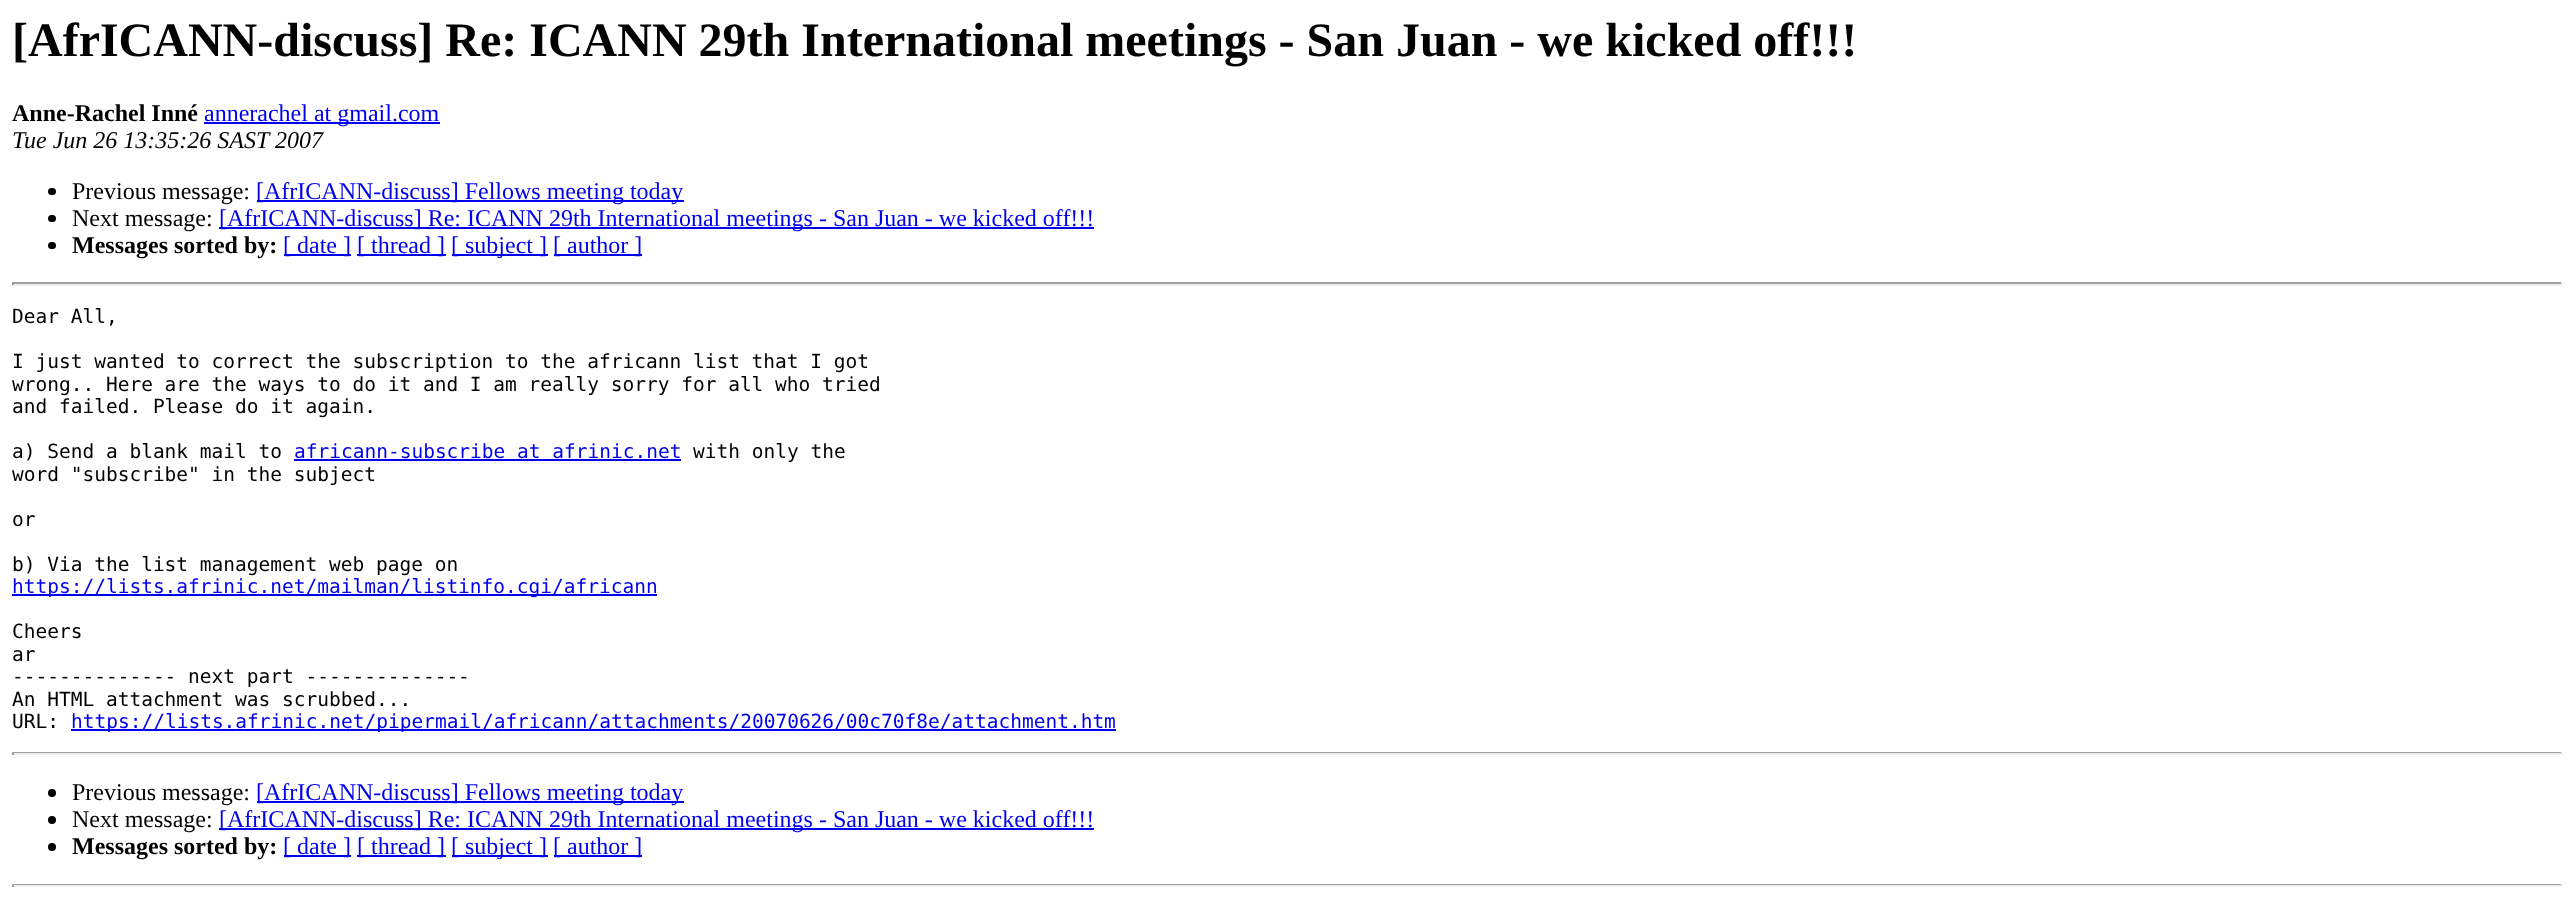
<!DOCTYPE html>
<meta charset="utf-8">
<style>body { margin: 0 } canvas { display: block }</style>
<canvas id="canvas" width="2574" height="900"></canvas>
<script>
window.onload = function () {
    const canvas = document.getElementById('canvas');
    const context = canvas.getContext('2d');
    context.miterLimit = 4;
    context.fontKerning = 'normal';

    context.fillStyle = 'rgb(255, 255, 255)';
    context.fillRect(0, 0, 2574, 900);
    context.fillStyle = 'rgb(0, 0, 238)';
    context.fillRect(204, 122, 236, 2);
    context.fillStyle = 'rgb(0, 0, 0)';
    context.beginPath();
    context.roundRect(48, 188, 8, 7, 3.5);
    context.fill();
    context.fillStyle = 'rgb(0, 0, 238)';
    context.fillRect(257, 200, 427, 2);
    context.fillStyle = 'rgb(0, 0, 0)';
    context.beginPath();
    context.roundRect(48, 215, 8, 7, 3.5);
    context.fill();
    context.fillStyle = 'rgb(0, 0, 238)';
    context.fillRect(219, 227, 875, 2);
    context.fillStyle = 'rgb(0, 0, 0)';
    context.beginPath();
    context.roundRect(48, 242, 8, 7, 3.5);
    context.fill();
    context.fillStyle = 'rgb(0, 0, 238)';
    context.fillRect(284, 254, 67, 2);
    context.fillRect(357, 254, 89, 2);
    context.fillRect(452, 254, 96, 2);
    context.fillRect(554, 254, 88, 2);
    context.fillStyle = 'rgb(159, 159, 159)';
    context.fillRect(12, 282, 2550, 2);
    context.fillStyle = 'rgb(238, 238, 238)';
    context.fillRect(2561, 282, 2, 3);
    context.fillRect(12, 284, 2550, 2);
    context.fillStyle = 'rgb(159, 159, 159)';
    context.fillRect(12, 282, 2, 3);
    context.fillStyle = 'rgb(0, 0, 238)';
    context.fillRect(294, 459, 387, 2);
    context.fillRect(12, 594, 645, 2);
    context.fillRect(71, 729, 1045, 2);
    context.fillStyle = 'rgb(159, 159, 159)';
    context.fillRect(12, 752, 2550, 1);
    context.fillStyle = 'rgb(238, 238, 238)';
    context.fillRect(2561, 752, 2, 3);
    context.fillRect(12, 753, 2550, 2);
    context.fillStyle = 'rgb(159, 159, 159)';
    context.fillRect(12, 752, 2, 3);
    context.fillStyle = 'rgb(0, 0, 0)';
    context.beginPath();
    context.arc(52, 793, 4, 0, 2 * Math.PI);
    context.fill();
    context.fillStyle = 'rgb(0, 0, 238)';
    context.fillRect(257, 801, 427, 2);
    context.fillStyle = 'rgb(0, 0, 0)';
    context.beginPath();
    context.arc(52, 820, 4, 0, 2 * Math.PI);
    context.fill();
    context.fillStyle = 'rgb(0, 0, 238)';
    context.fillRect(219, 828, 875, 2);
    context.fillStyle = 'rgb(0, 0, 0)';
    context.beginPath();
    context.arc(52, 847, 4, 0, 2 * Math.PI);
    context.fill();
    context.fillStyle = 'rgb(0, 0, 238)';
    context.fillRect(284, 855, 67, 2);
    context.fillRect(357, 855, 89, 2);
    context.fillRect(452, 855, 96, 2);
    context.fillRect(554, 855, 88, 2);
    context.fillStyle = 'rgb(159, 159, 159)';
    context.fillRect(12, 884, 2550, 1);
    context.fillStyle = 'rgb(238, 238, 238)';
    context.fillRect(2561, 884, 2, 3);
    context.fillRect(12, 885, 2550, 2);
    context.fillStyle = 'rgb(159, 159, 159)';
    context.fillRect(12, 884, 2, 3);
    context.font = 'bold 48px Liberation Serif';
    context.fillStyle = 'rgb(0, 0, 0)';
    context.fillText('[AfrICANN-discuss] Re: ICANN 29th International meetings - San Juan - we kicked off!!!', 12, 56);
    context.font = 'bold 24px Liberation Serif';
    context.fillText('Anne-Rachel Inné', 12, 121);
    context.font = '24px Liberation Serif';
    context.fillStyle = 'rgb(0, 0, 238)';
    context.fillText('annerachel at gmail.com', 204, 121);
    context.font = 'italic 24px Liberation Serif';
    context.fillStyle = 'rgb(0, 0, 0)';
    context.fillText('Tue Jun 26 13:35:26 SAST 2007', 12, 148);
    context.font = '24px Liberation Serif';
    context.fillText('Previous message:', 72, 199);
    context.fillStyle = 'rgb(0, 0, 238)';
    context.fillText('[AfrICANN-discuss] Fellows meeting today', 256, 199);
    context.fillStyle = 'rgb(0, 0, 0)';
    context.fillText('Next message:', 72, 226);
    context.fillStyle = 'rgb(0, 0, 238)';
    context.fillText('[AfrICANN-discuss] Re: ICANN 29th International meetings - San Juan - we kicked off!!!', 219, 226);
    context.font = 'bold 24px Liberation Serif';
    context.fillStyle = 'rgb(0, 0, 0)';
    context.fillText('Messages sorted by:', 72, 253);
    context.font = '24px Liberation Serif';
    context.fillStyle = 'rgb(0, 0, 238)';
    context.fillText('[ date ]', 283, 253);
    context.fillText('[ thread ]', 357, 253);
    context.fillText('[ subject ]', 451, 253);
    context.fillText('[ author ]', 553, 253);
    context.font = '19.5px DejaVu Sans Mono';
    context.fillStyle = 'rgb(0, 0, 0)';
    context.fillText('Dear All,', 12, 323);
    context.fillText('I just wanted to correct the subscription to the africann list that I got', 12, 368);
    context.fillText('wrong.. Here are the ways to do it and I am really sorry for all who tried', 12, 391);
    context.fillText('and failed. Please do it again.', 12, 413);
    context.fillText('a) Send a blank mail to', 12, 458);
    context.fillStyle = 'rgb(0, 0, 238)';
    context.fillText('africann-subscribe at afrinic.net', 294, 458);
    context.fillStyle = 'rgb(0, 0, 0)';
    context.fillText('with only the', 693, 458);
    context.fillText('word "subscribe" in the subject', 12, 481);
    context.fillText('or', 12, 526);
    context.fillText('b) Via the list management web page on', 12, 571);
    context.fillStyle = 'rgb(0, 0, 238)';
    context.fillText('https://lists.afrinic.net/mailman/listinfo.cgi/africann', 12, 593);
    context.fillStyle = 'rgb(0, 0, 0)';
    context.fillText('Cheers', 12, 638);
    context.fillText('ar', 12, 661);
    context.fillText('-------------- next part --------------', 12, 683);
    context.fillText('An HTML attachment was scrubbed...', 12, 706);
    context.fillText('URL:', 12, 728);
    context.fillStyle = 'rgb(0, 0, 238)';
    context.fillText('https://lists.afrinic.net/pipermail/africann/attachments/20070626/00c70f8e/attachment.htm', 71, 728);
    context.font = '24px Liberation Serif';
    context.fillStyle = 'rgb(0, 0, 0)';
    context.fillText('Previous message:', 72, 800);
    context.fillStyle = 'rgb(0, 0, 238)';
    context.fillText('[AfrICANN-discuss] Fellows meeting today', 256, 800);
    context.fillStyle = 'rgb(0, 0, 0)';
    context.fillText('Next message:', 72, 827);
    context.fillStyle = 'rgb(0, 0, 238)';
    context.fillText('[AfrICANN-discuss] Re: ICANN 29th International meetings - San Juan - we kicked off!!!', 219, 827);
    context.font = 'bold 24px Liberation Serif';
    context.fillStyle = 'rgb(0, 0, 0)';
    context.fillText('Messages sorted by:', 72, 854);
    context.font = '24px Liberation Serif';
    context.fillStyle = 'rgb(0, 0, 238)';
    context.fillText('[ date ]', 283, 854);
    context.fillText('[ thread ]', 357, 854);
    context.fillText('[ subject ]', 451, 854);
    context.fillText('[ author ]', 553, 854);
};
</script>
